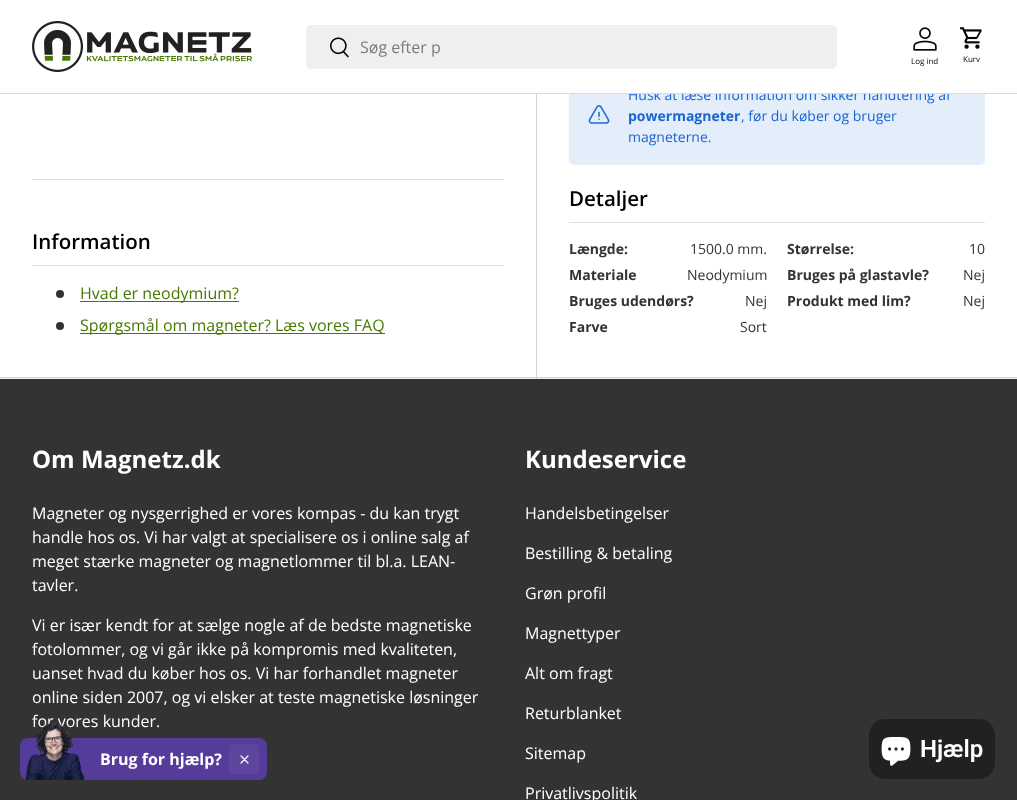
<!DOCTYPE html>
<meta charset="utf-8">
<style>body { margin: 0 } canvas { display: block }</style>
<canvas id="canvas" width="1017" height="800"></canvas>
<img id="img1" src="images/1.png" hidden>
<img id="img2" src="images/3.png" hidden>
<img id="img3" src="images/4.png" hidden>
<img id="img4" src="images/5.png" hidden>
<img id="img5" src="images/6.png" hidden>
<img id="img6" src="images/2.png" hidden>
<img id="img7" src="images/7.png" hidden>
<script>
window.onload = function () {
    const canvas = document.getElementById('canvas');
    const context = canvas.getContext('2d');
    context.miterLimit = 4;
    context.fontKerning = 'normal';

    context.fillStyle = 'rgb(255, 255, 255)';
    context.fillRect(0, 0, 1017, 800);
    context.drawImage(document.getElementById('img1'), 32, 21, 220, 51);
    context.drawImage(document.getElementById('img2'), 913, 27, 24, 24);
    context.drawImage(document.getElementById('img3'), 960, 27, 22, 22);
    context.fillStyle = 'rgb(224, 224, 224)';
    context.fillRect(32, 179, 472, 1);
    context.fillStyle = 'rgb(225, 225, 225)';
    context.fillRect(32, 265, 472, 1);
    context.fillStyle = 'rgb(51, 51, 51)';
    context.beginPath();
    context.arc(60, 294, 4, 0, 2 * Math.PI);
    context.fill();
    context.fillStyle = 'rgb(71, 121, 0)';
    context.fillRect(80, 301, 159, 1);
    context.fillStyle = 'rgb(51, 51, 51)';
    context.beginPath();
    context.arc(60, 326, 4, 0, 2 * Math.PI);
    context.fill();
    context.fillStyle = 'rgb(71, 121, 0)';
    context.fillRect(80, 333, 305, 1);
    context.fillStyle = 'rgb(239, 240, 237)';
    context.fillRect(0, 378, 1017, 1);
    context.fillStyle = 'rgb(211, 212, 210)';
    context.fillRect(0, 377, 1017, 1);
    context.fillStyle = 'rgb(211, 212, 209)';
    context.fillRect(536, 94, 1, 285);
    context.fillStyle = 'rgb(228, 237, 250)';
    context.beginPath();
    context.roundRect(569, 67, 416, 98, 5);
    context.fill();
    context.drawImage(document.getElementById('img4'), 588, 105, 22, 19);
    context.fillStyle = 'rgb(225, 225, 225)';
    context.fillRect(569, 222, 416, 1);
    context.fillStyle = 'rgb(51, 51, 51)';
    context.fillRect(0, 379, 1017, 421);
    context.fillStyle = 'rgb(33, 34, 31)';
    context.beginPath();
    context.roundRect(869, 719, 126, 60, 16);
    context.fill();
    context.drawImage(document.getElementById('img5'), 881, 737, 30, 29);
    context.fillStyle = 'rgb(85, 60, 154)';
    context.beginPath();
    context.roundRect(20, 738, 247, 42, 8);
    context.fill();
    context.fillStyle = 'rgb(94, 70, 159)';
    context.beginPath();
    context.roundRect(229, 744, 30, 30, 4);
    context.fill();
    context.beginPath();
    context.moveTo(241, 763);
    context.lineTo(248, 756);
    context.moveTo(241, 756);
    context.lineTo(248, 763);
    context.strokeStyle = 'rgb(255, 255, 255)';
    context.lineWidth = 1.2;
    context.lineCap = 'round';
    context.lineJoin = 'round';
    context.stroke();
    context.font = '8px Open Sans';
    context.fillStyle = 'rgb(7, 7, 7)';
    context.fillText('Log ind', 911, 64);
    context.fillText('Kurv', 963, 62);
    context.font = '600 20.5px Open Sans';
    context.fillStyle = 'rgb(0, 0, 0)';
    context.fillText('Information', 32, 249);
    context.font = '16px Open Sans';
    context.fillStyle = 'rgb(71, 121, 0)';
    context.fillText('Hvad er neodymium?', 80, 299);
    context.fillText('Spørgsmål om magneter? Læs vores FAQ', 80, 331);
    context.font = '14px Open Sans';
    context.fillStyle = 'rgb(26, 101, 210)';
    context.fillText('Husk at læse information om sikker håndtering af', 628, 100);
    context.fillStyle = 'rgb(255, 255, 255)';
    context.fillRect(569, 67, 416, 26);
    context.fillStyle = 'rgb(239, 240, 237)';
    context.beginPath();
    context.roundRect(306, 25, 531, 44, 5);
    context.fill();
    context.drawImage(document.getElementById('img6'), 330, 37, 19, 21);
    context.font = '16px Open Sans';
    context.fillStyle = 'rgb(123, 124, 122)';
    context.fillText('Søg efter p', 360, 53);
    context.fillStyle = 'rgb(218, 218, 218)';
    context.fillRect(0, 93, 1017, 1);
    context.font = 'bold 14px Open Sans';
    context.fillStyle = 'rgb(26, 101, 210)';
    context.fillText('powermagneter', 628, 121);
    context.font = '14px Open Sans';
    context.fillText(', før du køber og bruger', 741, 121);
    context.fillText('magneterne.', 628, 142);
    context.font = '600 20.5px Open Sans';
    context.fillStyle = 'rgb(0, 0, 0)';
    context.fillText('Detaljer', 569, 206);
    context.font = 'bold 14px Open Sans';
    context.fillStyle = 'rgb(51, 51, 51)';
    context.fillText('Længde:', 569, 254);
    context.font = '14px Open Sans';
    context.fillText('1500.0 mm.', 690, 254);
    context.font = 'bold 14px Open Sans';
    context.fillText('Størrelse:', 787, 254);
    context.font = '14px Open Sans';
    context.fillText('10', 969, 254);
    context.font = 'bold 14px Open Sans';
    context.fillText('Materiale', 569, 280);
    context.font = '14px Open Sans';
    context.fillText('Neodymium', 687, 280);
    context.font = 'bold 14px Open Sans';
    context.fillText('Bruges på glastavle?', 787, 280);
    context.font = '14px Open Sans';
    context.fillText('Nej', 963, 280);
    context.font = 'bold 14px Open Sans';
    context.fillText('Bruges udendørs?', 569, 306);
    context.font = '14px Open Sans';
    context.fillText('Nej', 745, 306);
    context.font = 'bold 14px Open Sans';
    context.fillText('Produkt med lim?', 787, 306);
    context.font = '14px Open Sans';
    context.fillText('Nej', 963, 306);
    context.font = 'bold 14px Open Sans';
    context.fillText('Farve', 569, 332);
    context.font = '14px Open Sans';
    context.fillText('Sort', 740, 332);
    context.font = 'bold 24px Open Sans';
    context.fillStyle = 'rgb(255, 255, 255)';
    context.fillText('Om Magnetz.dk', 32, 468);
    context.font = '16px Open Sans';
    context.fillText('Magneter og nysgerrighed er vores kompas - du kan trygt', 32, 519);
    context.fillText('handle hos os. Vi har valgt at specialisere os i online salg af', 32, 543);
    context.fillText('meget stærke magneter og magnetlommer til bl.a. LEAN-', 32, 567);
    context.fillText('tavler.', 32, 591);
    context.fillText('Vi er især kendt for at sælge nogle af de bedste magnetiske', 32, 631);
    context.fillText('fotolommer, og vi går ikke på kompromis med kvaliteten,', 32, 655);
    context.fillText('uanset hvad du køber hos os. Vi har forhandlet magneter', 32, 679);
    context.fillText('online siden 2007, og vi elsker at teste magnetiske løsninger', 32, 703);
    context.fillText('for vores kunder.', 32, 727);
    context.font = 'bold 24px Open Sans';
    context.fillText('Kundeservice', 525, 468);
    context.font = '16px Open Sans';
    context.fillText('Handelsbetingelser', 525, 519);
    context.fillText('Bestilling & betaling', 525, 559);
    context.fillText('Grøn profil', 525, 599);
    context.fillText('Magnettyper', 525, 639);
    context.fillText('Alt om fragt', 525, 679);
    context.fillText('Returblanket', 525, 719);
    context.fillText('Sitemap', 525, 759);
    context.fillText('Privatlivspolitik', 525, 799);
    context.font = '600 24px Roboto';
    context.fillText('Hjælp', 920, 757);
    context.drawImage(document.getElementById('img7'), 25, 722, 60, 58);
    context.font = 'bold 16px Open Sans';
    context.fillText('Brug for hjælp?', 100, 765);
};
</script>
